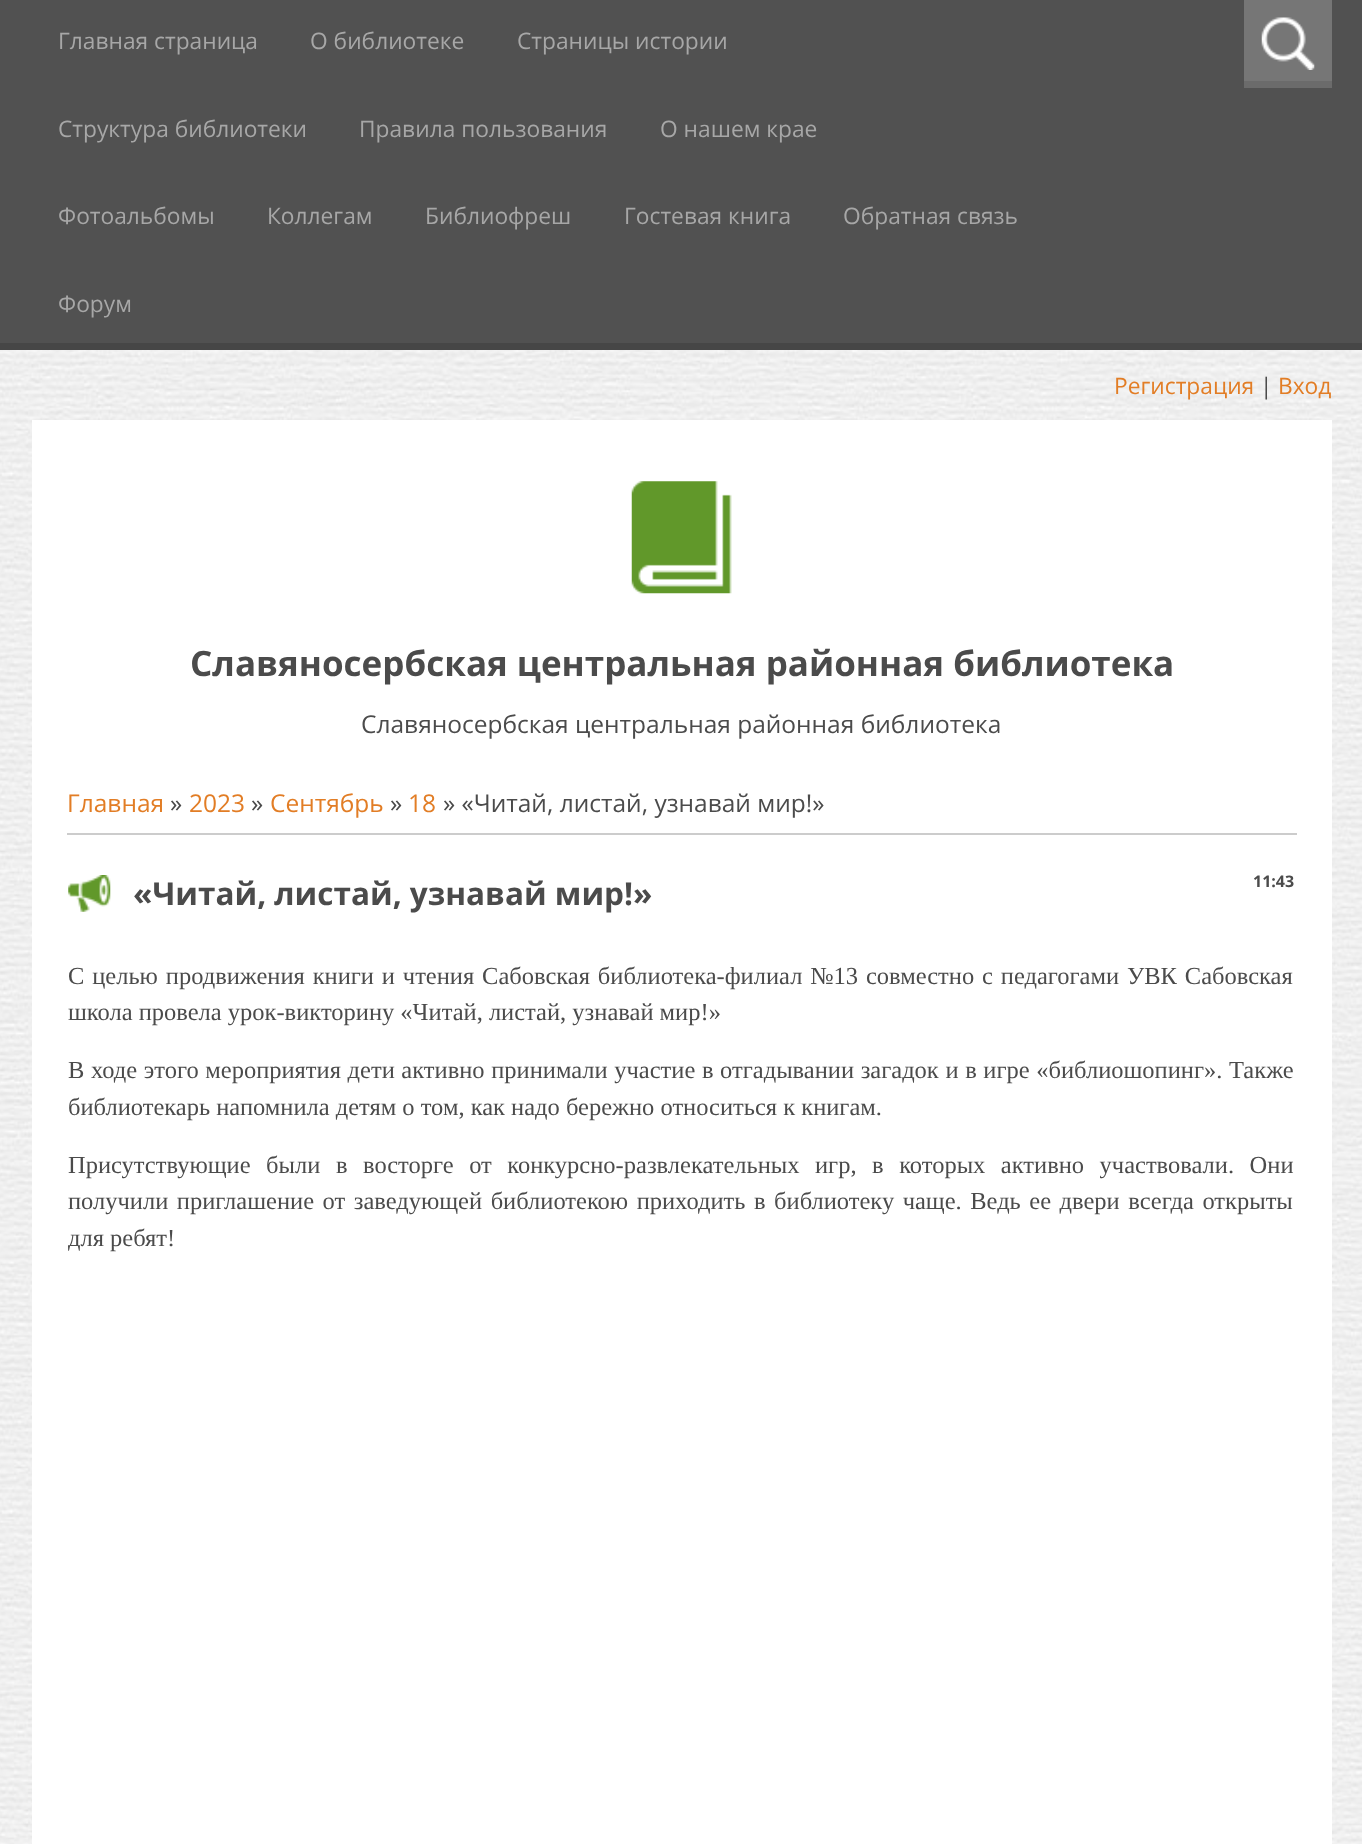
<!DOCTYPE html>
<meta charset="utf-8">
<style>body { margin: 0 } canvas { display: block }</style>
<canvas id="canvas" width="1362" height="1844"></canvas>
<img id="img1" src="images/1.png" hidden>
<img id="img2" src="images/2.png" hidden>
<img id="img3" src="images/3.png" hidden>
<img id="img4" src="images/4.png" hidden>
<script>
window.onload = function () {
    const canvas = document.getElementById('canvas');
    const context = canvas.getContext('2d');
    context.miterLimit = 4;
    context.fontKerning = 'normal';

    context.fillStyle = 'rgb(255, 255, 255)';
    context.fillRect(0, 0, 1362, 1844);
    context.drawImage(document.getElementById('img1'), 0, 350, 1362, 1494);
    context.fillStyle = 'rgb(81, 81, 81)';
    context.fillRect(0, 0, 1362, 343);
    context.fillStyle = 'rgb(70, 70, 70)';
    context.fillRect(0, 343, 1362, 7);
    context.fillStyle = 'rgb(118, 118, 118)';
    context.fillRect(1244, 0, 88, 81);
    context.drawImage(document.getElementById('img2'), 1261, 17, 54, 53);
    context.fillStyle = 'rgb(107, 107, 107)';
    context.fillRect(1244, 81, 88, 7);
    context.fillStyle = 'rgb(255, 255, 255)';
    context.fillRect(32, 420, 1300, 1424);
    context.drawImage(document.getElementById('img3'), 631, 481, 101, 113);
    context.fillStyle = 'rgb(204, 204, 204)';
    context.fillRect(67, 833, 1230, 2);
    context.drawImage(document.getElementById('img4'), 68, 875, 43, 37);
    context.font = '22.75px Open Sans';
    context.fillStyle = 'rgb(167, 167, 167)';
    context.fillText('Главная страница', 58, 49);
    context.fillText('О библиотеке', 310, 49);
    context.fillText('Страницы истории', 517, 49);
    context.fillText('Структура библиотеки', 58, 137);
    context.fillText('Правила пользования', 359, 137);
    context.fillText('О нашем крае', 660, 137);
    context.fillText('Фотоальбомы', 58, 224);
    context.fillText('Коллегам', 267, 224);
    context.fillText('Библиофреш', 425, 224);
    context.fillText('Гостевая книга', 624, 224);
    context.fillText('Обратная связь', 843, 224);
    context.fillText('Форум', 58, 312);
    context.fillStyle = 'rgb(226, 125, 37)';
    context.fillText('Регистрация', 1114, 394);
    context.fillStyle = 'rgb(75, 75, 75)';
    context.fillText('|', 1260, 394);
    context.fillStyle = 'rgb(226, 125, 37)';
    context.fillText('Вход', 1278, 394);
    context.font = 'bold 35px Open Sans';
    context.fillStyle = 'rgb(75, 75, 75)';
    context.fillText('Славяносербская центральная районная библиотека', 190, 676);
    context.font = '24.5px Open Sans';
    context.fillText('Славяносербская центральная районная библиотека', 361, 733);
    context.fillStyle = 'rgb(226, 125, 37)';
    context.fillText('Главная', 67, 812);
    context.fillStyle = 'rgb(75, 75, 75)';
    context.fillText('»', 170, 812);
    context.fillStyle = 'rgb(226, 125, 37)';
    context.fillText('2023', 189, 812);
    context.fillStyle = 'rgb(75, 75, 75)';
    context.fillText('»', 251, 812);
    context.fillStyle = 'rgb(226, 125, 37)';
    context.fillText('Сентябрь', 270, 812);
    context.fillStyle = 'rgb(75, 75, 75)';
    context.fillText('»', 390, 812);
    context.fillStyle = 'rgb(226, 125, 37)';
    context.fillText('18', 408, 812);
    context.fillStyle = 'rgb(75, 75, 75)';
    context.fillText('» «Читай, листай, узнавай мир!»', 443, 812);
    context.font = 'bold 31.5px Open Sans';
    context.fillText('«Читай, листай, узнавай мир!»', 133, 905);
    context.font = 'bold 16px Open Sans';
    context.fillText('11:43', 1253, 887);
    context.wordSpacing = '1.75px';
    context.font = '24.5px Liberation Serif';
    context.fillText('С целью продвижения книги и чтения Сабовская библиотека-филиал №13 совместно с педагогами УВК Сабовская', 68, 984);
    context.wordSpacing = '0px';
    context.fillText('школа провела урок-викторину «Читай, листай, узнавай мир!»', 68, 1020);
    context.wordSpacing = '0.5px';
    context.fillText('В ходе этого мероприятия дети активно принимали участие в отгадывании загадок и в игре «библиошопинг». Также', 68, 1078);
    context.wordSpacing = '0px';
    context.fillText('библиотекарь напомнила детям о том, как надо бережно относиться к книгам.', 68, 1115);
    context.wordSpacing = '9.4px';
    context.fillText('Присутствующие были в восторге от конкурсно-развлекательных игр, в которых активно участвовали. Они', 68, 1173);
    context.wordSpacing = '2.4px';
    context.fillText('получили приглашение от заведующей библиотекою приходить в библиотеку чаще. Ведь ее двери всегда открыты', 68, 1209);
    context.wordSpacing = '0px';
    context.fillText('для ребят!', 68, 1246);
};
</script>
